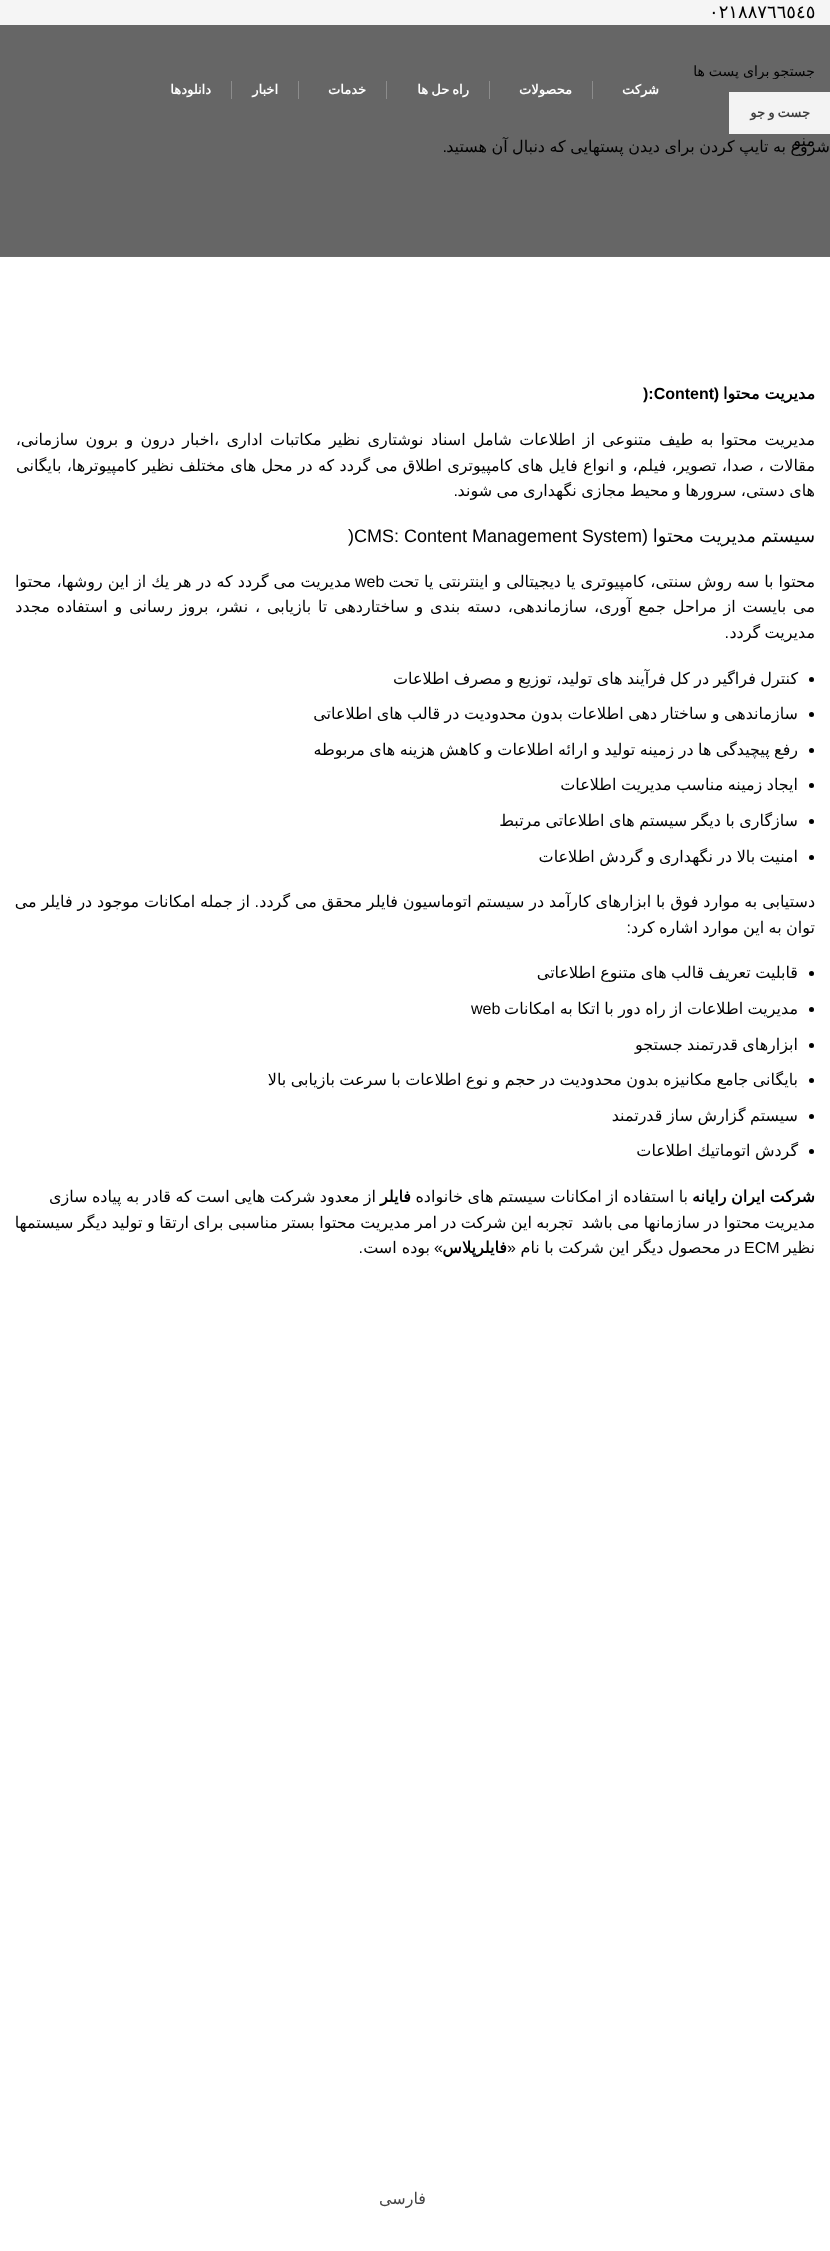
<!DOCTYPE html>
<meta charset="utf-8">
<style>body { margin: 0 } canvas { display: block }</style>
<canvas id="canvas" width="830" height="2251"></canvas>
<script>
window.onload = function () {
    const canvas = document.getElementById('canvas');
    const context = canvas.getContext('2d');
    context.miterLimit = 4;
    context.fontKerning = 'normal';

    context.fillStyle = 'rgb(255, 255, 255)';
    context.fillRect(0, 0, 830, 2251);
    context.fillStyle = 'rgb(245, 245, 245)';
    context.fillRect(0, 0, 830, 25);
    context.fillStyle = 'rgb(102, 102, 102)';
    context.fillRect(0, 25, 830, 231);
    context.fillStyle = 'rgb(107, 107, 107)';
    context.fillRect(0, 256, 830, 1);
    context.fillStyle = 'rgb(140, 140, 140)';
    context.fillRect(592, 81, 1, 18);
    context.fillRect(489, 81, 1, 18);
    context.fillRect(386, 81, 1, 18);
    context.fillRect(298, 81, 1, 18);
    context.fillRect(231, 81, 1, 18);
    context.fillStyle = 'rgb(0, 0, 0)';
    context.beginPath();
    context.arc(811.5, 679.5, 2.5, 0, 2 * Math.PI);
    context.fill();
    context.beginPath();
    context.arc(811.5, 714.5, 2.5, 0, 2 * Math.PI);
    context.fill();
    context.beginPath();
    context.arc(811.5, 750.5, 2.5, 0, 2 * Math.PI);
    context.fill();
    context.beginPath();
    context.arc(811.5, 785.5, 2.5, 0, 2 * Math.PI);
    context.fill();
    context.beginPath();
    context.arc(811.5, 821.5, 2.5, 0, 2 * Math.PI);
    context.fill();
    context.beginPath();
    context.arc(811.5, 857.5, 2.5, 0, 2 * Math.PI);
    context.fill();
    context.beginPath();
    context.arc(811.5, 973.5, 2.5, 0, 2 * Math.PI);
    context.fill();
    context.beginPath();
    context.arc(811.5, 1009.5, 2.5, 0, 2 * Math.PI);
    context.fill();
    context.beginPath();
    context.arc(811.5, 1045.5, 2.5, 0, 2 * Math.PI);
    context.fill();
    context.beginPath();
    context.arc(811.5, 1080.5, 2.5, 0, 2 * Math.PI);
    context.fill();
    context.beginPath();
    context.arc(811.5, 1116.5, 2.5, 0, 2 * Math.PI);
    context.fill();
    context.beginPath();
    context.arc(811.5, 1151.5, 2.5, 0, 2 * Math.PI);
    context.fill();
    context.fillStyle = 'rgb(243, 243, 243)';
    context.fillRect(729, 92, 101, 42);
    context.font = '18px DejaVu Sans';
    context.fillStyle = 'rgb(0, 0, 0)';
    context.fillText('۰۲۱٨٨٧٦٦٥٤٥', 709, 18);
    context.direction = 'rtl';
    context.font = 'bold 13px DejaVu Sans';
    context.fillStyle = 'rgb(255, 255, 255)';
    context.fillText('شرکت', 659, 94);
    context.fillText('محصولات', 572, 94);
    context.wordSpacing = '-1px';
    context.fillText('راه حل ها', 469, 94);
    context.wordSpacing = '0px';
    context.fillText('خدمات', 366, 94);
    context.fillText('اخبار', 278, 94);
    context.fillText('دانلودها', 211, 94);
    context.font = '16px DejaVu Sans';
    context.fillStyle = 'rgb(0, 0, 0)';
    context.fillText('منو', 815, 146);
    context.font = 'bold 16px DejaVu Sans';
    context.fillText('مدیریت محتوا', 815, 399);
    context.font = 'bold 16px Liberation Sans';
    context.fillText('(', 719, 399);
    context.direction = 'ltr';
    context.fillText('):Content', 643, 399);
    context.wordSpacing = '2.25px';
    context.direction = 'rtl';
    context.font = '16px DejaVu Sans';
    context.fillText('مدیریت محتوا به طیف متنوعی از اطلاعات شامل اسناد نوشتاری نظیر مكاتبات اداری ،اخبار درون و برون سازمانی،', 815, 445);
    context.wordSpacing = '0.25px';
    context.fillText('مقالات ، صدا، تصویر، فیلم، و انواع فایل های كامپیوتری اطلاق می گردد كه در محل های مختلف نظیر كامپیوترها، بایگانی', 815, 471);
    context.wordSpacing = '-0.6px';
    context.fillText('های دستی، سرورها و محیط مجازی نگهداری می شوند', 815, 496);
    context.wordSpacing = '0px';
    context.font = '16px Liberation Sans';
    context.fillText('.', 458, 496);
    context.wordSpacing = '-0.5px';
    context.font = '18px DejaVu Sans';
    context.fillText('سیستم مدیریت محتوا', 815, 542);
    context.wordSpacing = '0px';
    context.font = '18px Liberation Sans';
    context.fillText('(', 648, 542);
    context.direction = 'ltr';
    context.fillText(')CMS: Content Management System', 348, 542);
    context.direction = 'rtl';
    context.font = '16px DejaVu Sans';
    context.fillText('محتوا با سه روش سنتی، كامپیوتری یا دیجیتالی و اینترنتی یا تحت', 815, 587);
    context.direction = 'ltr';
    context.font = '16px Liberation Sans';
    context.fillText('web', 355, 587);
    context.direction = 'rtl';
    context.font = '16px DejaVu Sans';
    context.fillText('مدیریت می گردد كه در هر یك از این روشها، محتوا', 351, 587);
    context.wordSpacing = '1.75px';
    context.fillText('می بایست از مراحل جمع آوری، سازماندهی، دسته بندی و ساختاردهی تا بازیابی ، نشر، بروز رسانی و استفاده مجدد', 815, 612);
    context.wordSpacing = '-0.6px';
    context.fillText('مدیریت گردد', 815, 638);
    context.wordSpacing = '0px';
    context.font = '16px Liberation Sans';
    context.fillText('.', 729, 638);
    context.wordSpacing = '-0.6px';
    context.font = '16px DejaVu Sans';
    context.fillText('كنترل فراگیر در كل فرآیند های تولید، توزیع و مصرف اطلاعات', 798, 684);
    context.fillText('سازماندهی و ساختار دهی اطلاعات بدون محدودیت در قالب های اطلاعاتی', 798, 719);
    context.fillText('رفع پیچیدگی ها در زمینه تولید و ارائه اطلاعات و كاهش هزینه های مربوطه', 798, 755);
    context.fillText('ایجاد زمینه مناسب مدیریت اطلاعات', 798, 790);
    context.fillText('سازگاری با دیگر سیستم های اطلاعاتی مرتبط', 798, 826);
    context.fillText('امنیت بالا در نگهداری و گردش اطلاعات', 798, 862);
    context.wordSpacing = '-0.25px';
    context.fillText('دستیابی به موارد فوق با ابزارهای كارآمد در سیستم اتوماسیون فایلر محقق می گردد', 815, 907);
    context.wordSpacing = '0px';
    context.font = '16px Liberation Sans';
    context.fillText('.', 259, 907);
    context.wordSpacing = '-0.25px';
    context.font = '16px DejaVu Sans';
    context.fillText('از جمله امكانات موجود در فایلر می', 250, 907);
    context.wordSpacing = '-0.6px';
    context.fillText('توان به این موارد اشاره كرد', 815, 933);
    context.wordSpacing = '0px';
    context.font = '16px Liberation Sans';
    context.fillText(':', 631, 933);
    context.wordSpacing = '-0.6px';
    context.font = '16px DejaVu Sans';
    context.fillText('قابلیت تعریف قالب های متنوع اطلاعاتی', 798, 978);
    context.fillText('مدیریت اطلاعات از راه دور با اتكا به امكانات', 798, 1014);
    context.wordSpacing = '0px';
    context.direction = 'ltr';
    context.font = '16px Liberation Sans';
    context.fillText('web', 471, 1014);
    context.wordSpacing = '-0.6px';
    context.direction = 'rtl';
    context.font = '16px DejaVu Sans';
    context.fillText('ابزارهای قدرتمند جستجو', 798, 1050);
    context.fillText('بایگانی جامع مكانیزه بدون محدودیت در حجم و نوع اطلاعات با سرعت بازیابی بالا', 798, 1085);
    context.fillText('سیستم گزارش ساز قدرتمند', 798, 1121);
    context.fillText('گردش اتوماتیك اطلاعات', 798, 1156);
    context.font = 'bold 16px DejaVu Sans';
    context.fillText('شركت ایران رایانه', 815, 1202);
    context.wordSpacing = '-0.5px';
    context.font = '16px DejaVu Sans';
    context.fillText('با استفاده از امكانات سیستم های خانواده', 688, 1202);
    context.wordSpacing = '0px';
    context.font = 'bold 16px DejaVu Sans';
    context.fillText('فایلر', 411, 1202);
    context.wordSpacing = '-0.6px';
    context.font = '16px DejaVu Sans';
    context.fillText('از معدود شركت هایی است كه قادر به پیاده سازی', 376, 1202);
    context.fillText('مدیریت محتوا در سازمانها می باشد', 815, 1228);
    context.fillText('تجربه این شركت در امر مدیریت محتوا بستر مناسبی برای ارتقا و تولید دیگر سیستمها', 573, 1228);
    context.wordSpacing = '0px';
    context.fillText('نظیر', 815, 1253);
    context.direction = 'ltr';
    context.font = '16px Liberation Sans';
    context.fillText('ECM', 744, 1253);
    context.wordSpacing = '-0.5px';
    context.direction = 'rtl';
    context.font = '16px DejaVu Sans';
    context.fillText('در محصول دیگر این شركت با نام', 740, 1253);
    context.wordSpacing = '0px';
    context.font = '16px Liberation Sans';
    context.fillText('«', 516, 1253);
    context.font = 'bold 16px DejaVu Sans';
    context.fillText('فایلرپلاس', 507, 1253);
    context.font = '16px Liberation Sans';
    context.fillText('»', 443, 1253);
    context.font = '16px DejaVu Sans';
    context.fillText('بوده است', 430, 1253);
    context.font = '16px Liberation Sans';
    context.fillText('.', 363, 1253);
    context.save();
    context.beginPath();
    context.rect(15, 63, 800, 16);
    context.clip();
    context.wordSpacing = '-0.5px';
    context.font = '14px DejaVu Sans';
    context.fillText('جستجو برای پست ها', 815, 76);
    context.restore();
    context.wordSpacing = '-1px';
    context.font = 'bold 13px DejaVu Sans';
    context.fillStyle = 'rgb(62, 62, 62)';
    context.fillText('جست و جو', 810, 117);
    context.wordSpacing = '-0.6px';
    context.font = '16px DejaVu Sans';
    context.fillStyle = 'rgb(0, 0, 0)';
    context.fillText('شروع به تایپ کردن برای دیدن پستهایی که دنبال آن هستید', 830, 152);
    context.wordSpacing = '0px';
    context.font = '16px Liberation Sans';
    context.fillText('.', 447, 152);
    context.font = '16px DejaVu Sans';
    context.fillStyle = 'rgb(68, 68, 68)';
    context.fillText('فارسی', 426, 2204);
};
</script>
